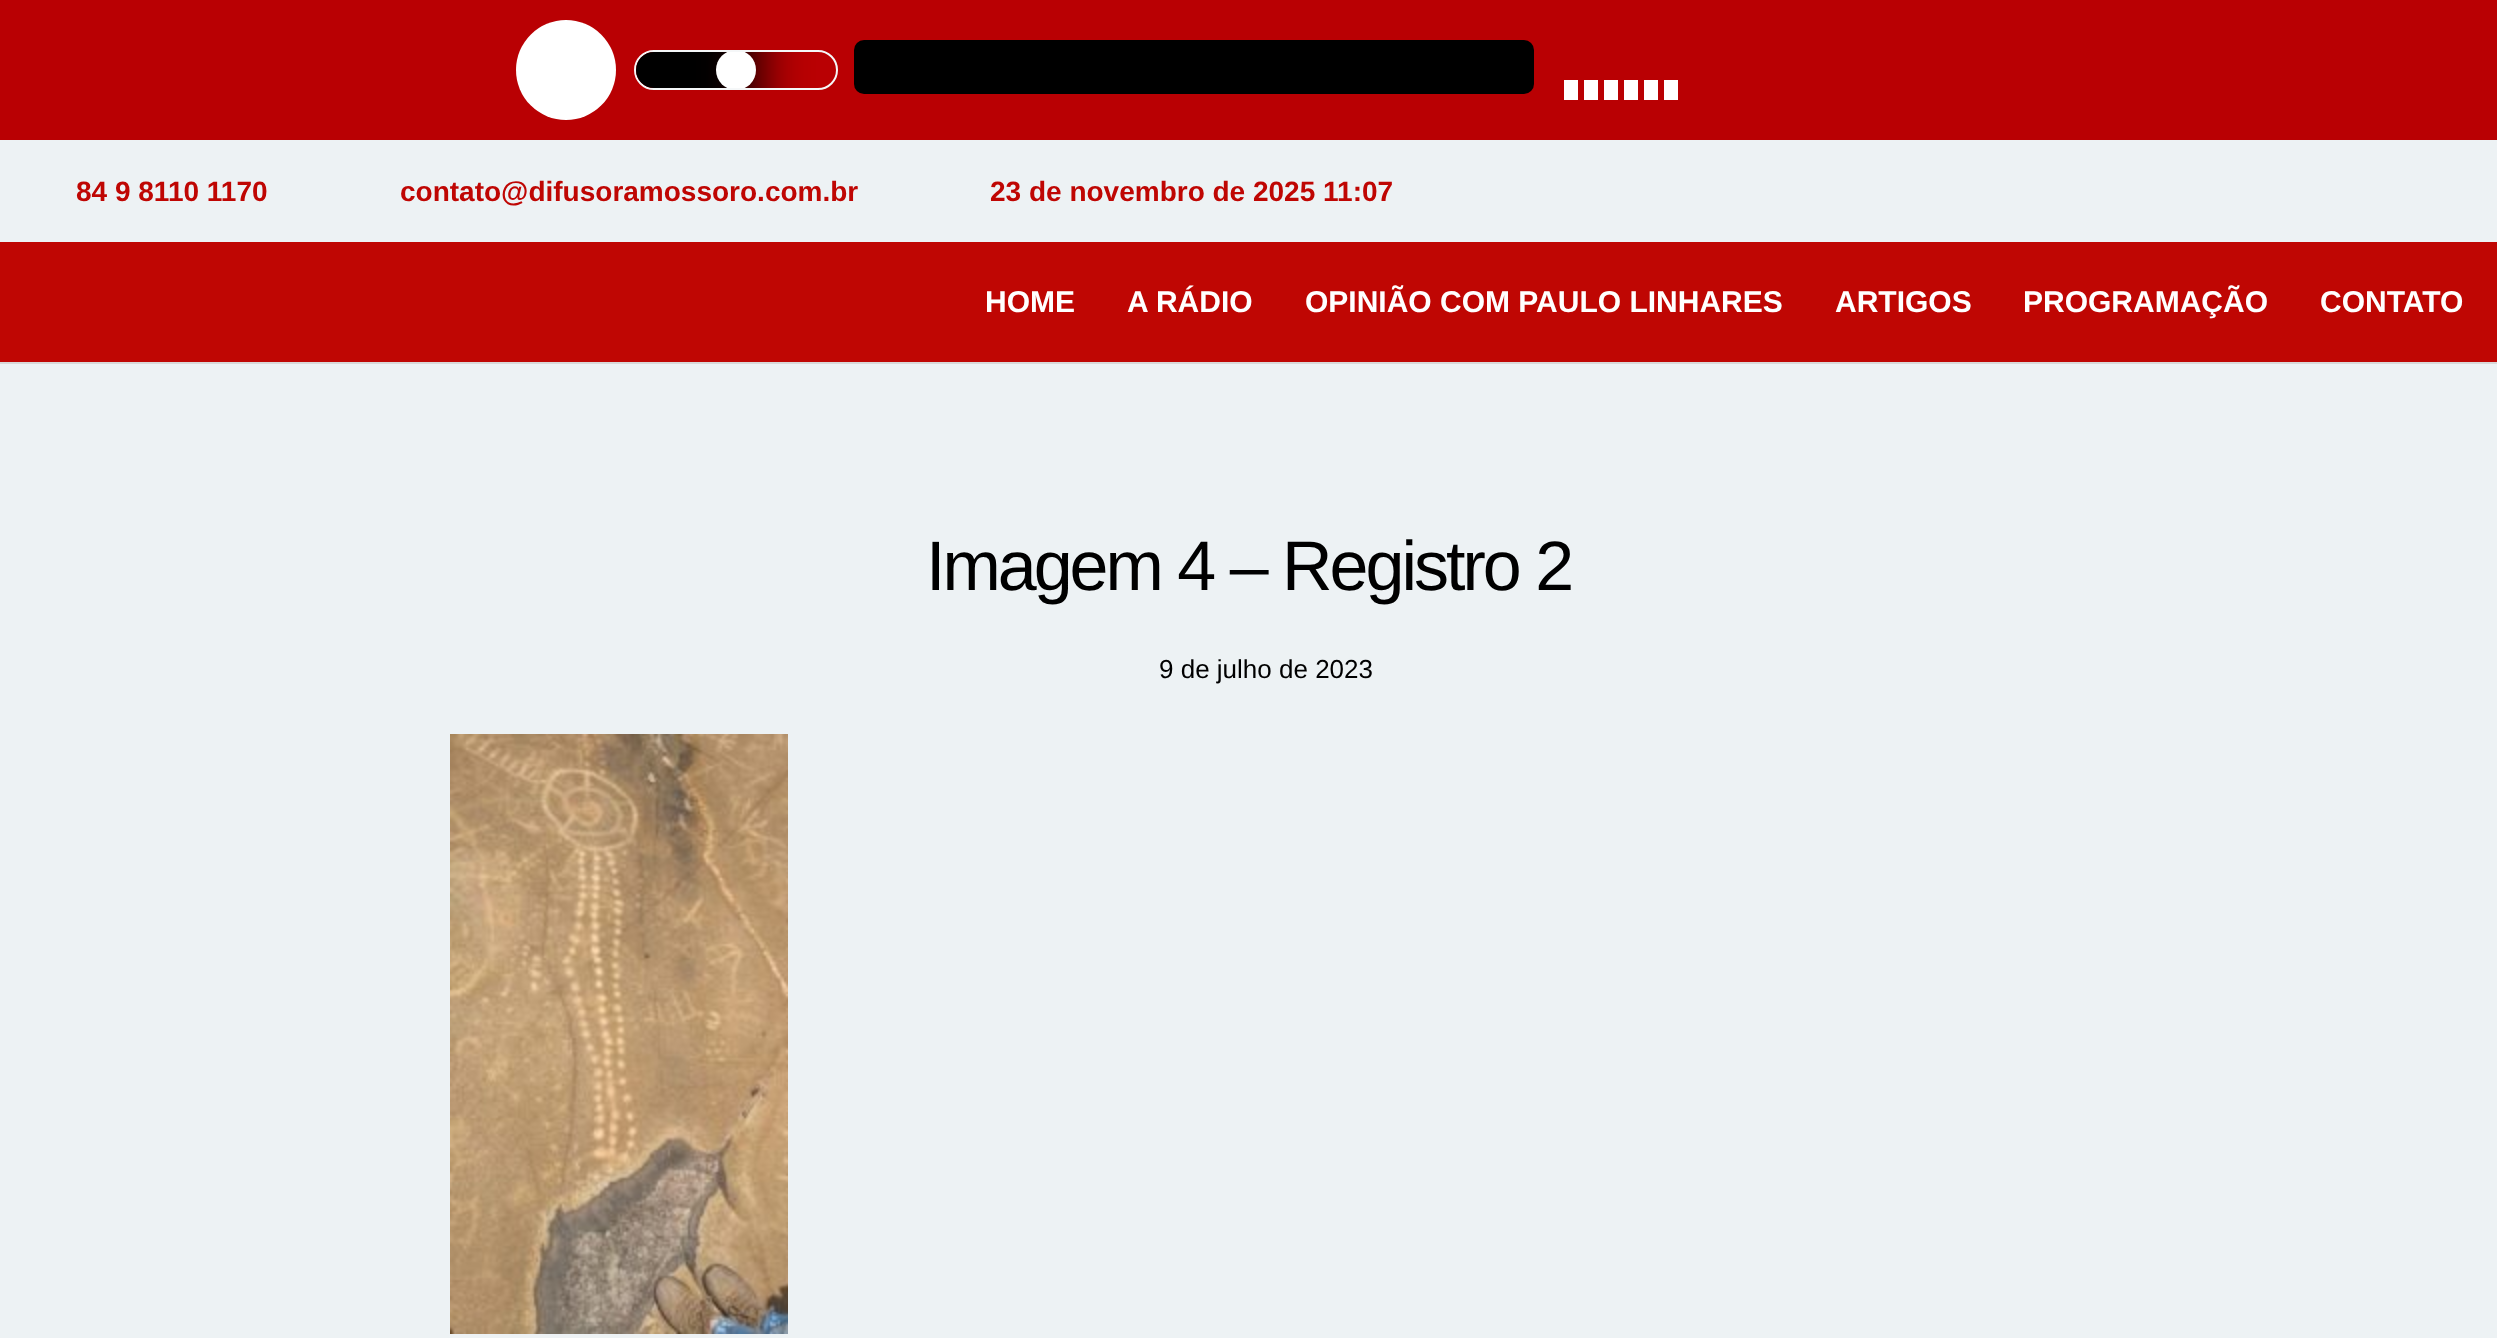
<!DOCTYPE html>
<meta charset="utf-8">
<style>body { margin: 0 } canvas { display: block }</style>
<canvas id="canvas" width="2497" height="1338"></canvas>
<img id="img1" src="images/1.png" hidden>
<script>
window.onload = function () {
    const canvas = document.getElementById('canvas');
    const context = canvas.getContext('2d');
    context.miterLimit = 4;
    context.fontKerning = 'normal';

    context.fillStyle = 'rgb(185, 0, 3)';
    context.fillRect(0, 0, 2497, 1338);
    context.beginPath();
    context.roundRect(635, 51, 202, 38, 19);
    context.strokeStyle = 'rgb(245, 247, 248)';
    context.lineWidth = 2;
    context.stroke();
    context.fillStyle = 'rgb(255, 255, 255)';
    context.beginPath();
    context.arc(566, 70, 50, 0, 2 * Math.PI);
    context.fill();
    context.save();
    context.beginPath();
    context.roundRect(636, 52, 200, 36, 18);
    context.clip();
    context.fillStyle = 'rgb(0, 0, 0)';
    context.filter = 'blur(25px)';
    context.beginPath();
    context.roundRect(-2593, -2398, 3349, 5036, 2518);
    context.fill();
    context.filter = 'none';
    context.restore();
    context.save();
    context.beginPath();
    context.roundRect(636, 52, 200, 36, 18);
    context.clip();
    context.beginPath();
    context.arc(736, 70, 20, 0, 2 * Math.PI);
    context.fill();
    context.restore();
    context.fillStyle = 'rgb(0, 0, 0)';
    context.beginPath();
    context.roundRect(854, 40, 680, 54, 10);
    context.fill();
    context.fillStyle = 'rgb(255, 255, 255)';
    context.fillRect(1564, 80, 14, 20);
    context.fillRect(1584, 80, 14, 20);
    context.fillRect(1604, 80, 14, 20);
    context.fillRect(1624, 80, 14, 20);
    context.fillRect(1644, 80, 14, 20);
    context.fillRect(1664, 80, 14, 20);
    context.fillStyle = 'rgb(237, 242, 244)';
    context.fillRect(0, 140, 2497, 102);
    context.fillStyle = 'rgb(191, 6, 3)';
    context.fillRect(0, 242, 2497, 120);
    context.fillStyle = 'rgb(216, 216, 216)';
    context.fillRect(0, 362, 2497, 2);
    context.fillStyle = 'rgb(237, 242, 244)';
    context.fillRect(0, 364, 2497, 974);
    context.drawImage(document.getElementById('img1'), 450, 734, 338, 600);
    context.font = 'bold 28px Liberation Sans';
    context.fillStyle = 'rgb(191, 6, 3)';
    context.fillText('84 9 8110 1170', 76, 201);
    context.fillText('contato@difusoramossoro.com.br', 400, 201);
    context.fillText('23 de novembro de 2025 11:07', 990, 201);
    context.font = 'bold 30px Liberation Sans';
    context.fillStyle = 'rgb(255, 255, 255)';
    context.fillText('HOME', 985, 312);
    context.fillText('A RÁDIO', 1127, 312);
    context.fillText('OPINIÃO COM PAULO LINHARES', 1305, 312);
    context.fillText('ARTIGOS', 1835, 312);
    context.fillText('PROGRAMAÇÃO', 2023, 312);
    context.fillText('CONTATO', 2320, 312);
    context.letterSpacing = '-3px';
    context.font = '70px Liberation Sans';
    context.fillStyle = 'rgb(0, 0, 0)';
    context.fillText('Imagem 4 – Registro 2', 926, 590);
    context.letterSpacing = '0px';
    context.font = '26px Liberation Sans';
    context.fillText('9 de julho de 2023', 1159, 678);
};
</script>
